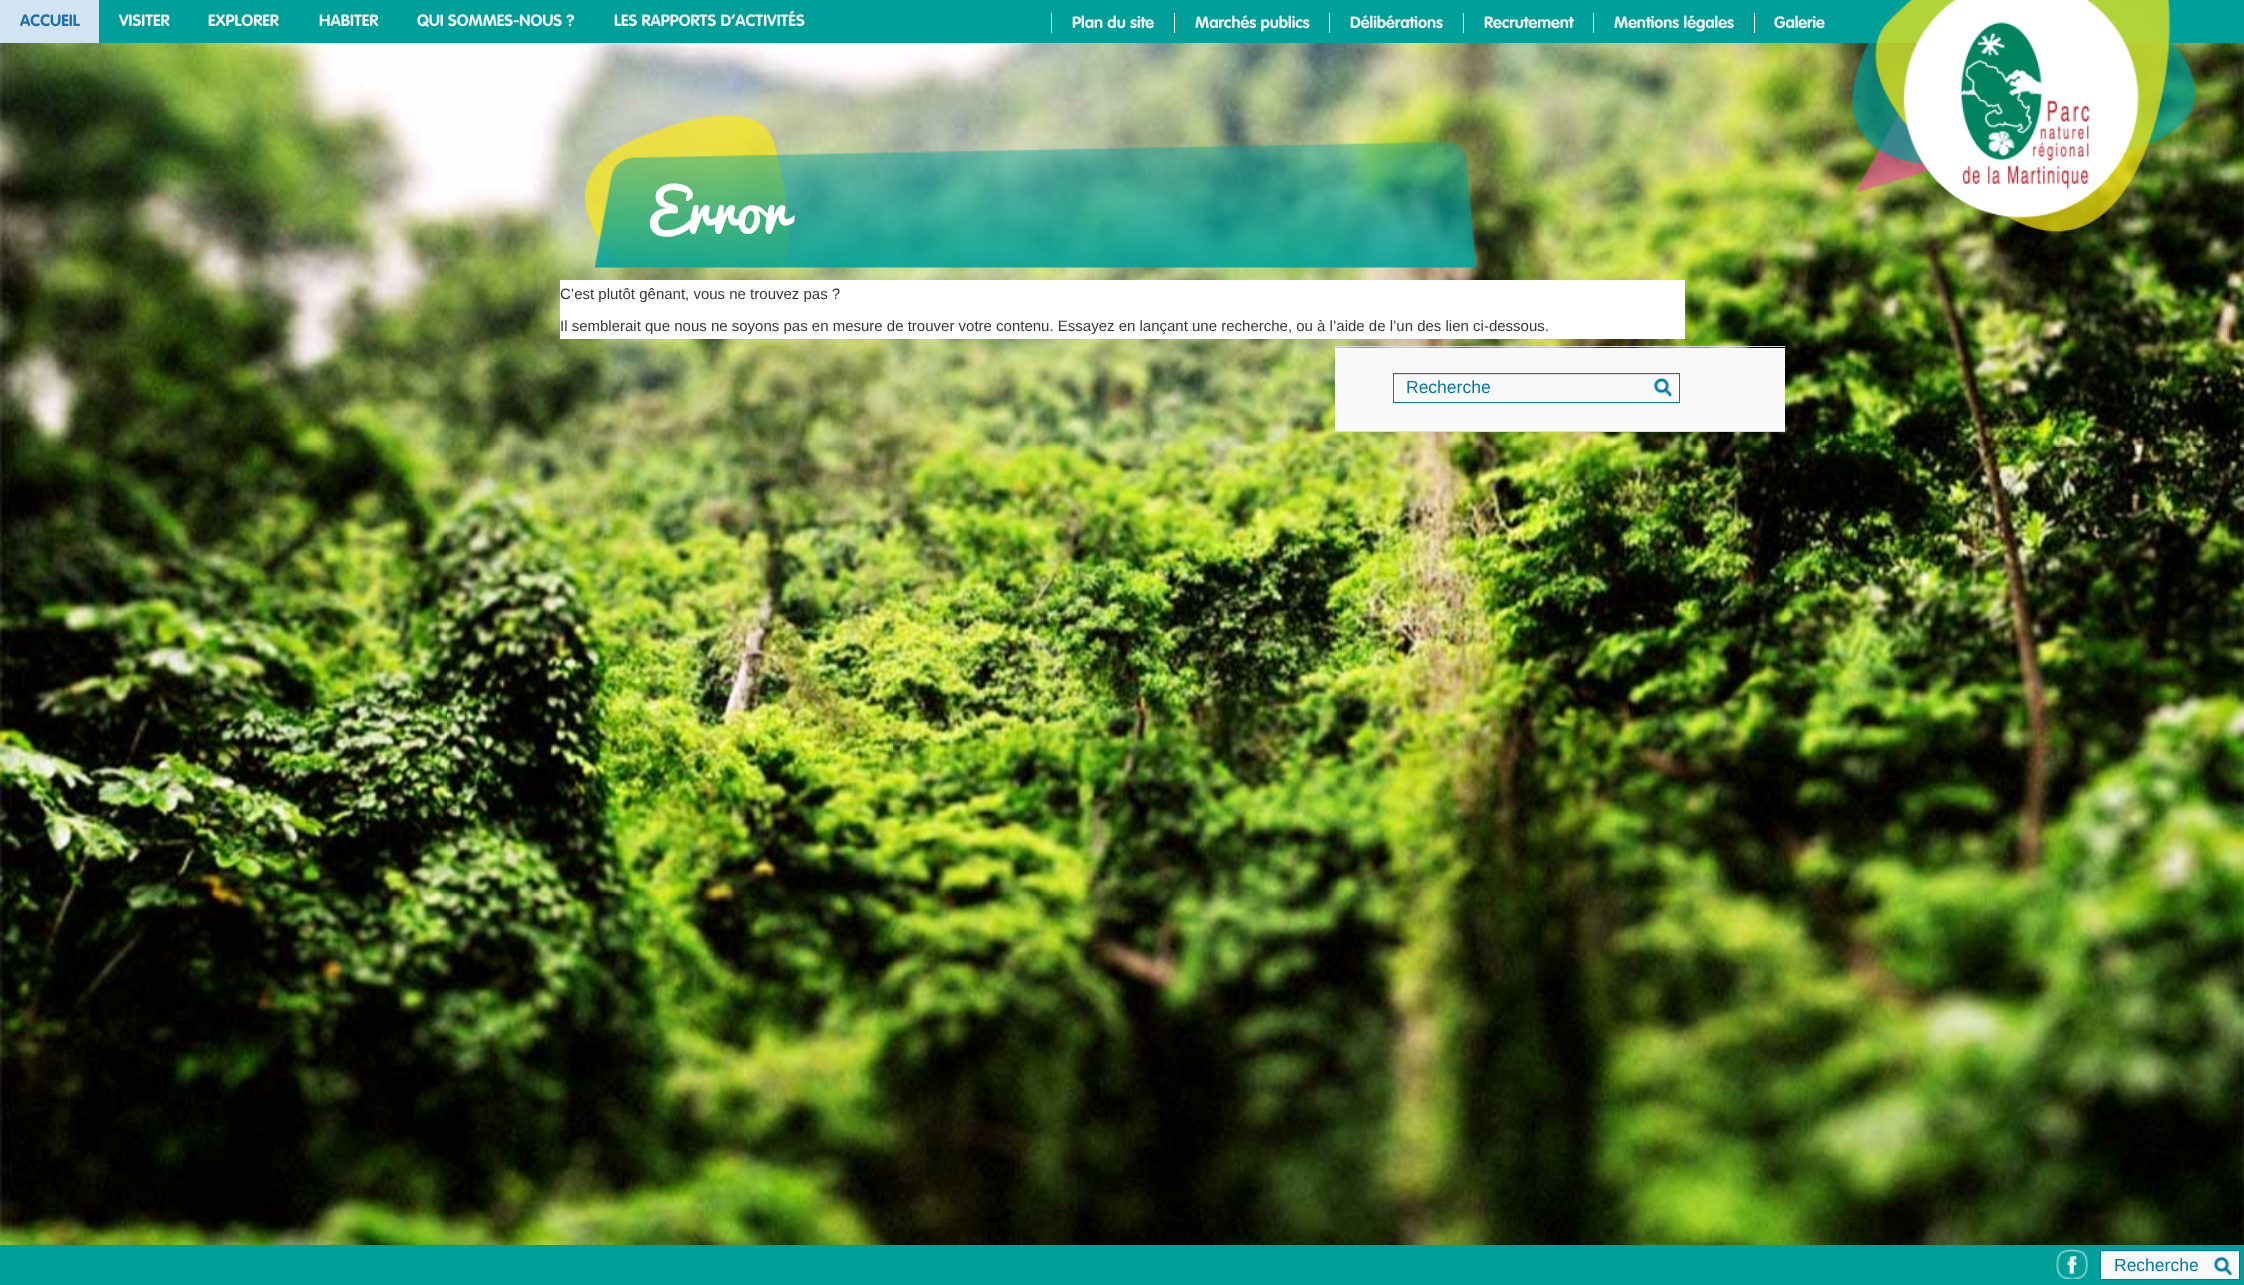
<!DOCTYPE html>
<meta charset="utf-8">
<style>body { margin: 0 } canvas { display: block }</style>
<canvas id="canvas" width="2244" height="1285"></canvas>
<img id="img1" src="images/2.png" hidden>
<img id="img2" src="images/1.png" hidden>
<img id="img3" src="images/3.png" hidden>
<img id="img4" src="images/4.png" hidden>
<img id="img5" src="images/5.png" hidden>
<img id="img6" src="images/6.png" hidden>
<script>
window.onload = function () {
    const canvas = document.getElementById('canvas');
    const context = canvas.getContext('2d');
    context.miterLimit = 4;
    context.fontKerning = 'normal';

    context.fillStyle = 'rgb(255, 255, 255)';
    context.fillRect(0, 0, 2244, 1285);
    context.fillStyle = 'rgb(0, 160, 154)';
    context.fillRect(99, 0, 2145, 43);
    context.fillStyle = 'rgb(210, 227, 241)';
    context.fillRect(0, 0, 99, 43);
    context.fillStyle = 'rgb(255, 255, 255)';
    context.fillRect(1051, 13, 1, 20);
    context.fillRect(1174, 13, 1, 20);
    context.fillRect(1329, 13, 1, 20);
    context.fillRect(1463, 13, 1, 20);
    context.fillRect(1593, 13, 1, 20);
    context.fillRect(1754, 13, 1, 20);
    context.drawImage(document.getElementById('img1'), 0, 43, 2244, 1202);
    context.drawImage(document.getElementById('img2'), 1852, 0, 343, 232);
    context.drawImage(document.getElementById('img3'), 585, 115, 892, 153);
    context.fillRect(560, 280, 1125, 59);
    context.fillStyle = 'rgb(249, 249, 249)';
    context.fillRect(1335, 348, 450, 83);
    context.fillStyle = 'rgb(221, 221, 221)';
    context.fillRect(1335, 346, 450, 1);
    context.fillRect(1335, 431, 450, 1);
    context.drawImage(document.getElementById('img4'), 1653, 377, 26, 20);
    context.fillStyle = 'rgb(224, 224, 224)';
    context.fillRect(1394, 374, 285, 1);
    context.strokeStyle = 'rgb(0, 124, 169)';
    context.strokeRect(1393.5, 373.5, 286, 29);
    context.fillStyle = 'rgb(0, 160, 154)';
    context.fillRect(0, 1245, 2244, 40);
    context.drawImage(document.getElementById('img5'), 2056, 1248, 32, 31);
    context.fillStyle = 'rgb(249, 249, 249)';
    context.fillRect(2101, 1252, 138, 27);
    context.drawImage(document.getElementById('img6'), 2213, 1256, 26, 19);
    context.fillStyle = 'rgb(224, 224, 224)';
    context.fillRect(2101, 1251, 138, 1);
    context.strokeRect(2100.5, 1250.5, 139, 29);
    context.font = 'bold 16.25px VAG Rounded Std';
    context.fillStyle = 'rgb(29, 112, 184)';
    context.fillText('ACCUEIL', 20, 26);
    context.fillStyle = 'rgb(238, 238, 238)';
    context.fillText('VISITER', 119, 26);
    context.fillText('EXPLORER', 208, 26);
    context.fillText('HABITER', 319, 26);
    context.fillText('QUI SOMMES-NOUS ?', 417, 26);
    context.fillText('LES RAPPORTS D’ACTIVITÉS', 614, 26);
    context.fillText('Plan du site', 1072, 28);
    context.fillText('Marchés publics', 1195, 28);
    context.fillText('Délibérations', 1350, 28);
    context.fillText('Recrutement', 1484, 28);
    context.fillText('Mentions légales', 1614, 28);
    context.fillText('Galerie', 1774, 28);
    context.font = '60px Pacifico';
    context.fillStyle = 'rgb(255, 255, 255)';
    context.fillText('Error', 648, 234);
    context.font = '15px Liberation Sans';
    context.fillStyle = 'rgb(55, 55, 55)';
    context.fillText('C’est plutôt gênant, vous ne trouvez pas ?', 560, 299);
    context.fillText('Il semblerait que nous ne soyons pas en mesure de trouver votre contenu. Essayez en lançant une recherche, ou à l’aide de l’un des lien ci-dessous.', 560, 331);
    context.font = '17.5px Liberation Sans';
    context.fillStyle = 'rgb(0, 121, 168)';
    context.fillText('Recherche', 1406, 393);
    context.fillText('Recherche', 2114, 1271);
};
</script>
